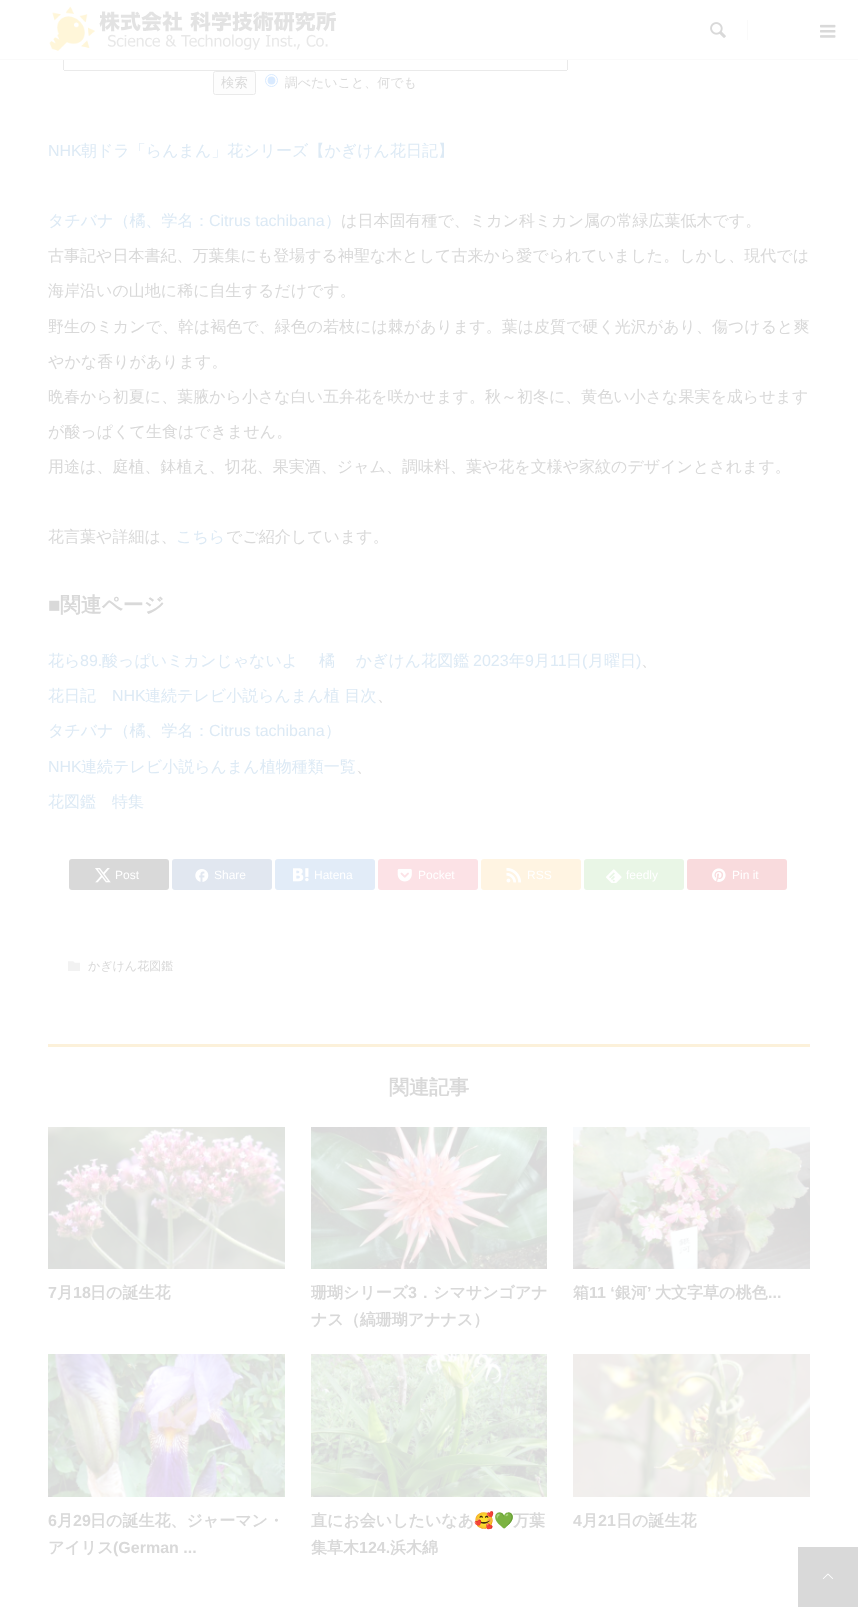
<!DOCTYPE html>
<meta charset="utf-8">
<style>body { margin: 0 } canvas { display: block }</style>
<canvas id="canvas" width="858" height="1607"></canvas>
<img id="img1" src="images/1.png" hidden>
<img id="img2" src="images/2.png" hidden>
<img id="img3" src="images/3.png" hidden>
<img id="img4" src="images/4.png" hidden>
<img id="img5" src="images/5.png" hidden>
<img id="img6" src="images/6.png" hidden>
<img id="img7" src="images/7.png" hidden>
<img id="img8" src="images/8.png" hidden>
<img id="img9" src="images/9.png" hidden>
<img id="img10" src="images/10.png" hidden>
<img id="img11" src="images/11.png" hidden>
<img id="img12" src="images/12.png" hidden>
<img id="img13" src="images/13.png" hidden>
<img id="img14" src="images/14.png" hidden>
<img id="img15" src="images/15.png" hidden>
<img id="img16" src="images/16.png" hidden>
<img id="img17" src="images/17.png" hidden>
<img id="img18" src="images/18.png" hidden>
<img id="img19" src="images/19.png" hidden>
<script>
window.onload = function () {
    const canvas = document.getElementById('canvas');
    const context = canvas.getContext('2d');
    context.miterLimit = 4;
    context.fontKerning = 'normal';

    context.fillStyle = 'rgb(255, 255, 255)';
    context.fillRect(0, 0, 858, 1607);
    context.fillStyle = 'rgb(250, 250, 250)';
    context.fillRect(0, 59, 858, 1);
    context.drawImage(document.getElementById('img1'), 49, 6, 287, 45);
    context.drawImage(document.getElementById('img2'), 710, 22, 16, 16);
    context.fillRect(747, 20, 1, 20);
    context.drawImage(document.getElementById('img3'), 820, 24, 16, 14);
    context.drawImage(document.getElementById('img4'), 63, 60, 505, 35);
    context.fillStyle = 'rgb(217, 217, 217)';
    context.beginPath();
    context.roundRect(69, 859, 100, 31, 3);
    context.fill();
    context.drawImage(document.getElementById('img5'), 95, 868, 16, 15);
    context.fillStyle = 'rgb(225, 231, 240)';
    context.beginPath();
    context.roundRect(172, 859, 100, 31, 3);
    context.fill();
    context.drawImage(document.getElementById('img6'), 195, 869, 14, 13);
    context.fillStyle = 'rgb(226, 236, 248)';
    context.beginPath();
    context.roundRect(275, 859, 100, 31, 3);
    context.fill();
    context.drawImage(document.getElementById('img7'), 293, 868, 16, 14);
    context.fillStyle = 'rgb(252, 226, 230)';
    context.beginPath();
    context.roundRect(378, 859, 100, 31, 3);
    context.fill();
    context.drawImage(document.getElementById('img8'), 397, 868, 15, 14);
    context.fillStyle = 'rgb(255, 244, 226)';
    context.beginPath();
    context.roundRect(481, 859, 100, 31, 3);
    context.fill();
    context.drawImage(document.getElementById('img9'), 506, 867, 16, 16);
    context.fillStyle = 'rgb(233, 246, 230)';
    context.beginPath();
    context.roundRect(584, 859, 100, 31, 3);
    context.fill();
    context.drawImage(document.getElementById('img10'), 606, 869, 16, 14);
    context.fillStyle = 'rgb(249, 219, 221)';
    context.beginPath();
    context.roundRect(687, 859, 100, 31, 3);
    context.fill();
    context.drawImage(document.getElementById('img11'), 712, 868, 14, 14);
    context.drawImage(document.getElementById('img12'), 68, 961, 12, 10);
    context.fillStyle = 'rgb(252, 241, 218)';
    context.fillRect(48, 1044, 762, 3);
    context.drawImage(document.getElementById('img13'), 48, 1127, 237, 142);
    context.drawImage(document.getElementById('img14'), 311, 1127, 236, 142);
    context.drawImage(document.getElementById('img15'), 573, 1127, 237, 142);
    context.drawImage(document.getElementById('img16'), 48, 1354, 237, 143);
    context.drawImage(document.getElementById('img17'), 311, 1354, 236, 143);
    context.drawImage(document.getElementById('img18'), 573, 1354, 237, 143);
    context.fillStyle = 'rgb(217, 217, 217)';
    context.fillRect(798, 1547, 60, 60);
    context.drawImage(document.getElementById('img19'), 822, 1573, 12, 6);
    context.font = '16px Liberation Sans';
    context.fillStyle = 'rgb(221, 234, 245)';
    context.fillText('NHK', 48, 156);
    context.font = '500 16px WenQuanYi Zen Hei';
    context.fillText('朝ドラ「らんまん」花シリーズ【かぎけん花日記】', 81, 156);
    context.fillText('タチバナ（橘、学名：', 48, 226);
    context.font = '16px Liberation Sans';
    context.fillText('Citrus tachibana', 209, 226);
    context.font = '500 16px WenQuanYi Zen Hei';
    context.fillText('）', 325, 226);
    context.fillStyle = 'rgb(217, 217, 217)';
    context.fillText('は日本固有種で、ミカン科ミカン属の常緑広葉低木です。', 341, 226);
    context.fillText('古事記や日本書紀、万葉集にも登場する神聖な木として古来から愛でられていました。しかし、現代では', 48, 261);
    context.fillText('海岸沿いの山地に稀に自生するだけです。', 48, 296);
    context.fillText('野生のミカンで、幹は褐色で、緑色の若枝には棘があります。葉は皮質で硬く光沢があり、傷つけると爽', 48, 332);
    context.fillText('やかな香りがあります。', 48, 367);
    context.fillText('晩春から初夏に、葉腋から小さな白い五弁花を咲かせます。秋～初冬に、黄色い小さな果実を成らせます', 48, 402);
    context.fillText('が酸っぱくて生食はできません。', 48, 437);
    context.fillText('用途は、庭植、鉢植え、切花、果実酒、ジャム、調味料、葉や花を文様や家紋のデザインとされます。', 48, 472);
    context.fillText('花言葉や詳細は、', 48, 542);
    context.fillStyle = 'rgb(221, 234, 245)';
    context.fillText('こちら', 176, 542);
    context.fillStyle = 'rgb(217, 217, 217)';
    context.fillText('でご紹介しています。', 226, 542);
    context.font = 'bold 20.75px Liberation Sans';
    context.fillText('■', 48, 612);
    context.font = 'bold 20.75px WenQuanYi Zen Hei';
    context.fillText('関連ページ', 60, 612);
    context.font = '500 16px WenQuanYi Zen Hei';
    context.fillStyle = 'rgb(221, 234, 245)';
    context.fillText('花ら', 48, 666);
    context.font = '16px Liberation Sans';
    context.fillText('89.', 80, 666);
    context.font = '500 16px WenQuanYi Zen Hei';
    context.fillText('酸っぱいミカンじゃないよ　 橘　 かぎけん花図鑑', 102, 666);
    context.font = '16px Liberation Sans';
    context.fillText('2023', 473, 666);
    context.font = '500 16px WenQuanYi Zen Hei';
    context.fillText('年', 509, 666);
    context.font = '16px Liberation Sans';
    context.fillText('9', 525, 666);
    context.font = '500 16px WenQuanYi Zen Hei';
    context.fillText('月', 534, 666);
    context.font = '16px Liberation Sans';
    context.fillText('11', 550, 666);
    context.font = '500 16px WenQuanYi Zen Hei';
    context.fillText('日', 566, 666);
    context.font = '16px Liberation Sans';
    context.fillText('(', 582, 666);
    context.font = '500 16px WenQuanYi Zen Hei';
    context.fillText('月曜日', 588, 666);
    context.font = '16px Liberation Sans';
    context.fillText(')', 636, 666);
    context.font = '500 16px WenQuanYi Zen Hei';
    context.fillStyle = 'rgb(217, 217, 217)';
    context.fillText('、', 641, 666);
    context.fillStyle = 'rgb(221, 234, 245)';
    context.fillText('花日記', 48, 701);
    context.font = '16px Liberation Sans';
    context.fillText('NHK', 112, 701);
    context.font = '500 16px WenQuanYi Zen Hei';
    context.fillText('連続テレビ小説らんまん植 目次', 145, 701);
    context.fillStyle = 'rgb(217, 217, 217)';
    context.fillText('、', 377, 701);
    context.fillStyle = 'rgb(221, 234, 245)';
    context.fillText('タチバナ（橘、学名：', 48, 736);
    context.font = '16px Liberation Sans';
    context.fillText('Citrus tachibana', 209, 736);
    context.font = '500 16px WenQuanYi Zen Hei';
    context.fillText('）', 325, 736);
    context.font = '16px Liberation Sans';
    context.fillText('NHK', 48, 772);
    context.font = '500 16px WenQuanYi Zen Hei';
    context.fillText('連続テレビ小説らんまん植物種類一覧', 81, 772);
    context.fillStyle = 'rgb(217, 217, 217)';
    context.fillText('、', 356, 772);
    context.fillStyle = 'rgb(221, 234, 245)';
    context.fillText('花図鑑　特集', 48, 807);
    context.font = '12px Liberation Sans';
    context.fillStyle = 'rgb(255, 255, 255)';
    context.fillText('Post', 115, 879);
    context.fillText('Share', 214, 879);
    context.fillText('Hatena', 314, 879);
    context.fillText('Pocket', 418, 879);
    context.fillText('RSS', 527, 879);
    context.fillText('feedly', 626, 879);
    context.fillText('Pin it', 732, 879);
    context.font = '500 12px WenQuanYi Zen Hei';
    context.fillStyle = 'rgb(217, 217, 217)';
    context.fillText('かぎけん花図鑑', 88, 970);
    context.font = 'bold 20px WenQuanYi Zen Hei';
    context.fillText('関連記事', 389, 1094);
    context.font = 'bold 16px Liberation Sans';
    context.fillText('7', 48, 1298);
    context.font = 'bold 16px WenQuanYi Zen Hei';
    context.fillText('月', 57, 1298);
    context.font = 'bold 16px Liberation Sans';
    context.fillText('18', 73, 1298);
    context.font = 'bold 16px WenQuanYi Zen Hei';
    context.fillText('日の誕生花', 90, 1298);
    context.save();
    context.beginPath();
    context.rect(311, 1127, 236, 227);
    context.clip();
    context.fillText('珊瑚シリーズ', 311, 1298);
    context.restore();
    context.font = 'bold 16px Liberation Sans';
    context.fillText('3', 408, 1298);
    context.font = 'bold 16px WenQuanYi Zen Hei';
    context.fillText('．シマサンゴアナ', 417, 1298);
    context.fillText('ナス（縞珊瑚アナナス）', 311, 1325);
    context.fillText('箱', 573, 1298);
    context.font = 'bold 16px Liberation Sans';
    context.fillText('11 ‘', 589, 1298);
    context.font = 'bold 16px WenQuanYi Zen Hei';
    context.fillText('銀河', 615, 1298);
    context.font = 'bold 16px Liberation Sans';
    context.fillText('’', 647, 1298);
    context.font = 'bold 16px WenQuanYi Zen Hei';
    context.fillText('大文字草の桃色', 655, 1298);
    context.font = 'bold 16px Liberation Sans';
    context.fillText('...', 768, 1298);
    context.fillText('6', 48, 1526);
    context.font = 'bold 16px WenQuanYi Zen Hei';
    context.fillText('月', 57, 1526);
    context.font = 'bold 16px Liberation Sans';
    context.fillText('29', 73, 1526);
    context.font = 'bold 16px WenQuanYi Zen Hei';
    context.fillText('日の誕生花、ジャーマン・', 90, 1526);
    context.fillText('アイリス', 48, 1553);
    context.font = 'bold 16px Liberation Sans';
    context.fillText('(German ...', 113, 1553);
    context.font = 'bold 16px WenQuanYi Zen Hei';
    context.fillText('直にお会いしたいなあ', 311, 1526);
    context.font = 'bold 16px Noto Color Emoji';
    context.fillText('🥰💚', 474, 1526);
    context.font = 'bold 16px WenQuanYi Zen Hei';
    context.fillText('万葉', 513, 1526);
    context.fillText('集草木', 311, 1553);
    context.font = 'bold 16px Liberation Sans';
    context.fillText('124.', 359, 1553);
    context.font = 'bold 16px WenQuanYi Zen Hei';
    context.fillText('浜木綿', 390, 1553);
    context.font = 'bold 16px Liberation Sans';
    context.fillText('4', 573, 1526);
    context.font = 'bold 16px WenQuanYi Zen Hei';
    context.fillText('月', 582, 1526);
    context.font = 'bold 16px Liberation Sans';
    context.fillText('21', 598, 1526);
    context.font = 'bold 16px WenQuanYi Zen Hei';
    context.fillText('日の誕生花', 616, 1526);
};
</script>
